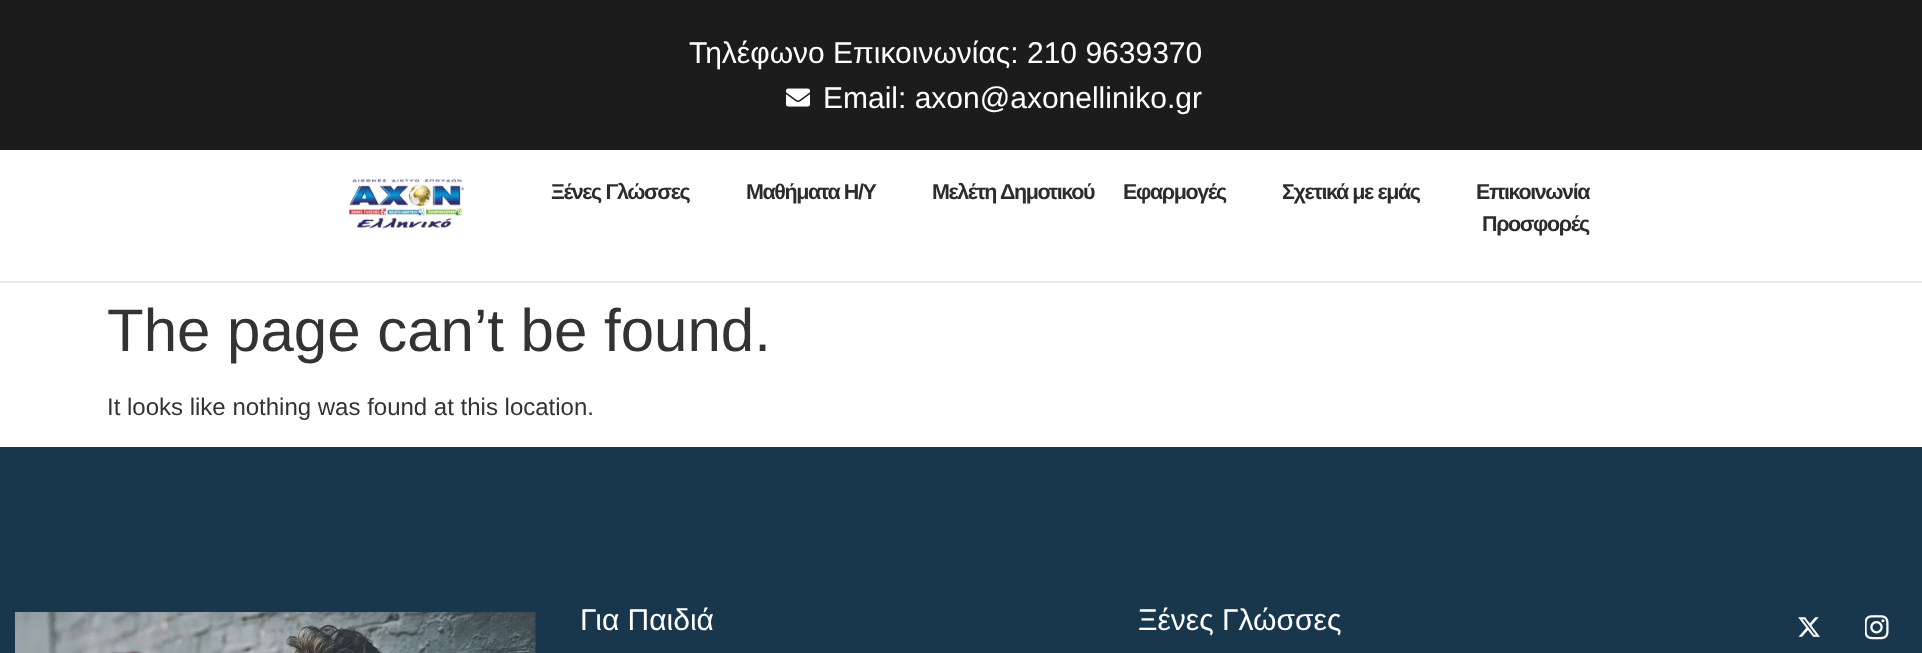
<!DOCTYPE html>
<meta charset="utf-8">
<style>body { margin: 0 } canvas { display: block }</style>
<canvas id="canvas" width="1922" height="653"></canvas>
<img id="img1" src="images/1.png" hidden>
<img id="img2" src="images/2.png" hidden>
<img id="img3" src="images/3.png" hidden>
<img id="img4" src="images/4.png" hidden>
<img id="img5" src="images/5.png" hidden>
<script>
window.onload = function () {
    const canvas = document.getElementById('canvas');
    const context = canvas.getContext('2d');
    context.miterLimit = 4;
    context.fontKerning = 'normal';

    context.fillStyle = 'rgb(255, 255, 255)';
    context.fillRect(0, 0, 1922, 653);
    context.fillStyle = 'rgb(29, 28, 28)';
    context.fillRect(0, 0, 1922, 150);
    context.drawImage(document.getElementById('img1'), 786, 88, 24, 19);
    context.fillStyle = 'rgba(26, 26, 26, 0.06)';
    context.fillRect(0, 281, 1922, 2);
    context.drawImage(document.getElementById('img2'), 348, 178, 116, 52);
    context.fillStyle = 'rgba(255, 255, 255, 0.87)';
    context.fillRect(0, 281, 1922, 1);
    context.fillStyle = 'rgba(26, 26, 26, 0.05)';
    context.fillRect(0, 281, 1922, 2);
    context.fillStyle = 'rgb(24, 55, 77)';
    context.fillRect(0, 447, 1922, 206);
    context.drawImage(document.getElementById('img3'), 15, 612, 521, 41);
    context.drawImage(document.getElementById('img4'), 1798, 617, 22, 20);
    context.drawImage(document.getElementById('img5'), 1865, 615, 24, 25);
    context.font = '30px Liberation Sans';
    context.fillStyle = 'rgb(255, 255, 255)';
    context.fillText('Τηλέφωνο Επικοινωνίας: 210 9639370', 689, 63);
    context.fillText('Email: axon@axonelliniko.gr', 823, 108);
    context.letterSpacing = '-1.4px';
    context.font = 'bold 21.5px Liberation Sans';
    context.fillStyle = 'rgb(44, 44, 44)';
    context.fillText('Ξένες Γλώσσες', 551, 199);
    context.fillText('Μαθήματα H/Y', 746, 199);
    context.fillText('Μελέτη Δημοτικού', 932, 199);
    context.fillText('Εφαρμογές', 1123, 199);
    context.fillText('Σχετικά με εμάς', 1282, 199);
    context.fillText('Επικοινωνία', 1476, 199);
    context.fillText('Προσφορές', 1482, 231);
    context.letterSpacing = '0px';
    context.font = '60px Liberation Sans';
    context.fillStyle = 'rgb(51, 51, 51)';
    context.fillText('The page can’t be found.', 107, 351);
    context.font = '24px Liberation Sans';
    context.fillText('It looks like nothing was found at this location.', 107, 415);
    context.font = '30px Liberation Sans';
    context.fillStyle = 'rgb(255, 255, 255)';
    context.fillText('Για Παιδιά', 580, 630);
    context.fillText('Ξένες Γλώσσες', 1138, 630);
};
</script>
